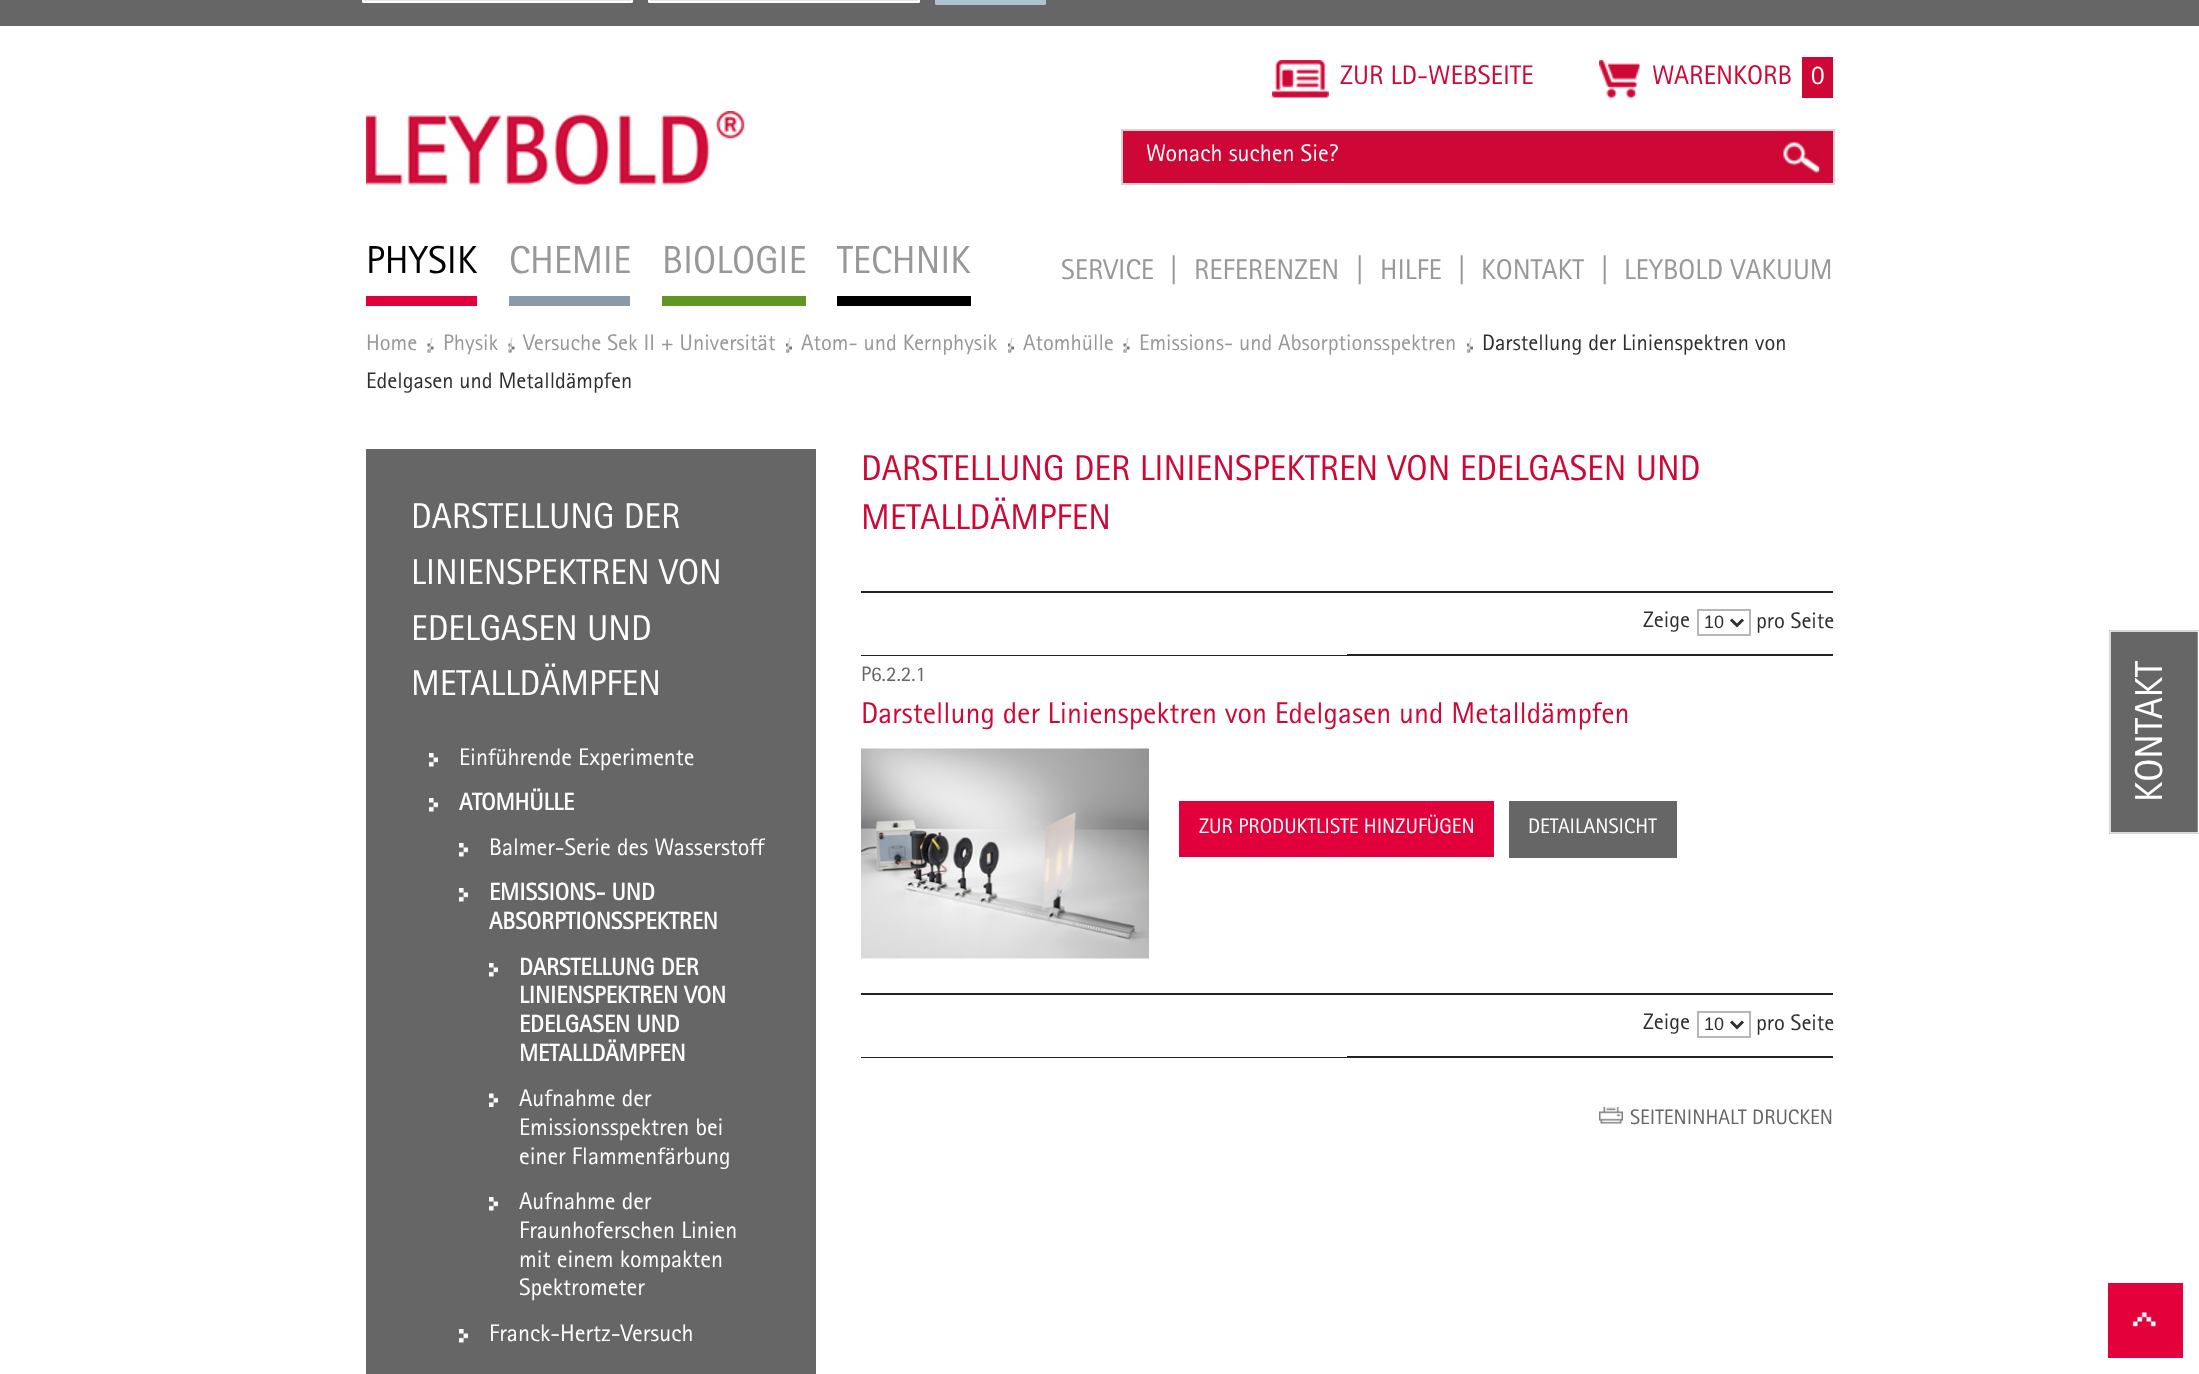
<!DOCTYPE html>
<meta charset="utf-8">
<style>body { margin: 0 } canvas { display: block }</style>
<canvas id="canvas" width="2199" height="1374"></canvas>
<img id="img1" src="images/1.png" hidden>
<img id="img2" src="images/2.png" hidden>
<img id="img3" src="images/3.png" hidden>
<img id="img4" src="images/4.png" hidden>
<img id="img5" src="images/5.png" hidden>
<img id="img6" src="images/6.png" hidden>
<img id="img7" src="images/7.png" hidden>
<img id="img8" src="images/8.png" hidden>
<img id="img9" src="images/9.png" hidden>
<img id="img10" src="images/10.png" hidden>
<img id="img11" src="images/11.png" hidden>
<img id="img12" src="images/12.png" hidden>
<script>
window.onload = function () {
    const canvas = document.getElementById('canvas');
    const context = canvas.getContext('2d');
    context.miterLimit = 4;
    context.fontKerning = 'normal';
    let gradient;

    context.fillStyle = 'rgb(255, 255, 255)';
    context.fillRect(0, 0, 2199, 1374);
    context.fillStyle = 'rgb(102, 102, 102)';
    context.fillRect(0, 0, 2199, 26);
    gradient = context.createLinearGradient(497, -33, 497, 1.5);
    gradient.addColorStop(0, 'rgb(255, 255, 255)');
    gradient.addColorStop(1, 'rgb(232, 232, 232)');
    context.fillStyle = gradient;
    context.fillRect(362, 0, 271, 2);
    context.beginPath();
    context.roundRect(363, -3, 269, 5, 0.5);
    context.strokeStyle = 'rgb(255, 255, 255)';
    context.lineWidth = 2;
    context.stroke();
    gradient = context.createLinearGradient(784, -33, 784, 1.5);
    gradient.addColorStop(0, 'rgb(255, 255, 255)');
    gradient.addColorStop(1, 'rgb(232, 232, 232)');
    context.fillStyle = gradient;
    context.fillRect(648, 0, 272, 2);
    context.beginPath();
    context.roundRect(649, -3, 270, 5, 0.5);
    context.stroke();
    context.fillStyle = 'rgb(175, 195, 206)';
    context.beginPath();
    context.roundRect(935, -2, 111, 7, 1.5);
    context.fill();
    context.drawImage(document.getElementById('img1'), 366, 111, 379, 75);
    context.fillStyle = 'rgb(225, 0, 60)';
    context.fillRect(366, 296, 111, 10);
    context.fillStyle = 'rgb(138, 155, 167)';
    context.fillRect(509, 296, 121, 10);
    context.fillStyle = 'rgb(98, 150, 35)';
    context.fillRect(662, 296, 144, 10);
    context.fillStyle = 'rgb(0, 0, 0)';
    context.fillRect(837, 296, 134, 10);
    context.drawImage(document.getElementById('img2'), 1272, 60, 57, 38);
    context.drawImage(document.getElementById('img3'), 1599, 60, 41, 38);
    context.fillStyle = 'rgb(207, 7, 54)';
    context.fillRect(1802, 57, 31, 41);
    context.beginPath();
    context.rect(1122, 130, 712, 54);
    context.fill();
    context.strokeStyle = 'rgb(212, 210, 211)';
    context.stroke();
    context.drawImage(document.getElementById('img4'), 1783, 141, 37, 32);
    context.drawImage(document.getElementById('img5'), 427, 343, 7, 10);
    context.drawImage(document.getElementById('img6'), 508, 343, 7, 10);
    context.drawImage(document.getElementById('img7'), 786, 343, 6, 10);
    context.drawImage(document.getElementById('img7'), 1008, 343, 6, 10);
    context.drawImage(document.getElementById('img5'), 1123, 343, 7, 10);
    context.drawImage(document.getElementById('img7'), 1467, 343, 6, 10);
    context.fillStyle = 'rgb(102, 102, 102)';
    context.fillRect(366, 449, 450, 925);
    context.drawImage(document.getElementById('img8'), 429, 753, 9, 14);
    context.drawImage(document.getElementById('img8'), 429, 798, 9, 14);
    context.drawImage(document.getElementById('img8'), 459, 843, 9, 14);
    context.drawImage(document.getElementById('img8'), 459, 888, 9, 14);
    context.drawImage(document.getElementById('img8'), 489, 963, 9, 14);
    context.drawImage(document.getElementById('img9'), 489, 1093, 9, 14);
    context.drawImage(document.getElementById('img8'), 489, 1197, 9, 14);
    context.drawImage(document.getElementById('img8'), 459, 1329, 9, 14);
    context.fillStyle = 'rgb(34, 34, 34)';
    context.fillRect(861, 591, 972, 2);
    context.fillRect(861, 654, 972, 2);
    context.fillStyle = 'rgb(255, 255, 255)';
    context.fillRect(861, 654, 486, 1);
    context.strokeStyle = 'rgb(182, 182, 182)';
    context.strokeRect(1698, 610, 52, 25);
    context.beginPath();
    context.moveTo(1731, 619.5);
    context.lineTo(1737, 625.5);
    context.lineTo(1743, 619.5);
    context.strokeStyle = 'rgb(47, 47, 47)';
    context.lineWidth = 3;
    context.stroke();
    context.drawImage(document.getElementById('img10'), 861, 748, 288, 211);
    context.fillStyle = 'rgb(225, 0, 60)';
    context.fillRect(1179, 801, 315, 56);
    context.fillStyle = 'rgb(102, 102, 102)';
    context.fillRect(1509, 801, 168, 57);
    context.fillStyle = 'rgb(34, 34, 34)';
    context.fillRect(861, 993, 972, 2);
    context.fillRect(861, 1056, 972, 2);
    context.fillStyle = 'rgb(255, 255, 255)';
    context.fillRect(861, 1056, 486, 1);
    context.strokeStyle = 'rgb(182, 182, 182)';
    context.lineWidth = 2;
    context.strokeRect(1698, 1012, 52, 25);
    context.beginPath();
    context.moveTo(1731, 1021.5);
    context.lineTo(1737, 1027.5);
    context.lineTo(1743, 1021.5);
    context.strokeStyle = 'rgb(47, 47, 47)';
    context.lineWidth = 3;
    context.stroke();
    context.drawImage(document.getElementById('img11'), 1599, 1107, 24, 17);
    context.fillStyle = 'rgb(102, 102, 102)';
    context.fillRect(2109, 630, 90, 204);
    context.beginPath();
    context.moveTo(2110, 833);
    context.lineTo(2110, 631);
    context.lineTo(2198.5, 631);
    context.lineTo(2198.5, 833);
    context.closePath();
    context.strokeStyle = 'rgb(255, 255, 255)';
    context.lineWidth = 1.5;
    context.stroke();
    context.fillStyle = 'rgb(228, 0, 58)';
    context.fillRect(2108, 1283, 75, 75);
    context.drawImage(document.getElementById('img12'), 2132, 1312, 24, 15);
    context.font = '39px "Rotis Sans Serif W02"';
    context.fillStyle = 'rgb(0, 0, 0)';
    context.fillText('PHYSIK', 366, 273);
    context.fillStyle = 'rgb(152, 152, 152)';
    context.fillText('CHEMIE', 509, 273);
    context.fillText('BIOLOGIE', 662, 273);
    context.fillText('TECHNIK', 837, 273);
    context.font = '27px "Rotis Sans Serif W02"';
    context.fillStyle = 'rgb(207, 7, 54)';
    context.fillText('ZUR LD-WEBSEITE', 1340, 84);
    context.fillText('WARENKORB', 1652, 84);
    context.fillStyle = 'rgb(255, 255, 255)';
    context.fillText('0', 1811, 84);
    context.font = '24px "Rotis Sans Serif W02"';
    context.fillText('Wonach suchen Sie?', 1146, 161);
    context.font = '28.5px "Rotis Sans Serif W02"';
    context.fillStyle = 'rgb(152, 152, 152)';
    context.fillText('SERVICE', 1061, 279);
    context.fillText('|', 1170, 279);
    context.fillText('REFERENZEN', 1194, 279);
    context.fillText('|', 1356, 279);
    context.fillText('HILFE', 1380, 279);
    context.fillText('|', 1458, 279);
    context.fillText('KONTAKT', 1481, 279);
    context.fillText('|', 1601, 279);
    context.fillText('LEYBOLD VAKUUM', 1624, 279);
    context.font = '22.5px "Rotis Sans Serif W02"';
    context.fillText('Home', 366, 350);
    context.font = '16px "Rotis Sans Serif W02"';
    context.fillStyle = 'rgb(211, 211, 211)';
    context.fillText('/', 428, 350);
    context.font = '22.5px "Rotis Sans Serif W02"';
    context.fillStyle = 'rgb(152, 152, 152)';
    context.fillText('Physik', 443, 350);
    context.font = '16px "Rotis Sans Serif W02"';
    context.fillStyle = 'rgb(211, 211, 211)';
    context.fillText('/', 508, 350);
    context.font = '22.5px "Rotis Sans Serif W02"';
    context.fillStyle = 'rgb(152, 152, 152)';
    context.fillText('Versuche Sek II + Universität', 523, 350);
    context.font = '16px "Rotis Sans Serif W02"';
    context.fillStyle = 'rgb(211, 211, 211)';
    context.fillText('/', 786, 350);
    context.font = '22.5px "Rotis Sans Serif W02"';
    context.fillStyle = 'rgb(152, 152, 152)';
    context.fillText('Atom- und Kernphysik', 801, 350);
    context.font = '16px "Rotis Sans Serif W02"';
    context.fillStyle = 'rgb(211, 211, 211)';
    context.fillText('/', 1008, 350);
    context.font = '22.5px "Rotis Sans Serif W02"';
    context.fillStyle = 'rgb(152, 152, 152)';
    context.fillText('Atomhülle', 1023, 350);
    context.font = '16px "Rotis Sans Serif W02"';
    context.fillStyle = 'rgb(211, 211, 211)';
    context.fillText('/', 1124, 350);
    context.font = '22.5px "Rotis Sans Serif W02"';
    context.fillStyle = 'rgb(152, 152, 152)';
    context.fillText('Emissions- und Absorptionsspektren', 1139, 350);
    context.font = '16px "Rotis Sans Serif W02"';
    context.fillStyle = 'rgb(211, 211, 211)';
    context.fillText('/', 1467, 350);
    context.font = '22.5px "Rotis Sans Serif W02"';
    context.fillStyle = 'rgb(47, 47, 47)';
    context.fillText('Darstellung der Linienspektren von', 1482, 350);
    context.fillText('Edelgasen und Metalldämpfen', 366, 388);
    context.font = '36px "Rotis Sans Serif W02"';
    context.fillStyle = 'rgb(255, 255, 255)';
    context.fillText('DARSTELLUNG DER', 411, 528);
    context.fillText('LINIENSPEKTREN VON', 411, 584);
    context.fillText('EDELGASEN UND', 411, 640);
    context.fillText('METALLDÄMPFEN', 411, 695);
    context.font = '24px "Rotis Sans Serif W02"';
    context.fillText('Einführende Experimente', 459, 765);
    context.font = 'bold 24px "Rotis Sans Serif W02"';
    context.fillText('ATOMHÜLLE', 459, 810);
    context.font = '24px "Rotis Sans Serif W02"';
    context.fillText('Balmer-Serie des Wasserstoff', 489, 855);
    context.font = 'bold 24px "Rotis Sans Serif W02"';
    context.fillText('EMISSIONS- UND', 489, 900);
    context.fillText('ABSORPTIONSSPEKTREN', 489, 929);
    context.fillText('DARSTELLUNG DER', 519, 975);
    context.fillText('LINIENSPEKTREN VON', 519, 1003);
    context.fillText('EDELGASEN UND', 519, 1032);
    context.fillText('METALLDÄMPFEN', 519, 1061);
    context.font = '24px "Rotis Sans Serif W02"';
    context.fillText('Aufnahme der', 519, 1106);
    context.fillText('Emissionsspektren bei', 519, 1135);
    context.fillText('einer Flammenfärbung', 519, 1164);
    context.fillText('Aufnahme der', 519, 1209);
    context.fillText('Fraunhoferschen Linien', 519, 1238);
    context.fillText('mit einem kompakten', 519, 1267);
    context.fillText('Spektrometer', 519, 1295);
    context.fillText('Franck-Hertz-Versuch', 489, 1341);
    context.font = '36px "Rotis Sans Serif W02"';
    context.fillStyle = 'rgb(207, 7, 54)';
    context.fillText('DARSTELLUNG DER LINIENSPEKTREN VON EDELGASEN UND', 861, 480);
    context.fillText('METALLDÄMPFEN', 861, 529);
    context.font = '22.5px "Rotis Sans Serif W02"';
    context.fillStyle = 'rgb(47, 47, 47)';
    context.fillText('Zeige', 1643, 627);
    context.font = '18px Liberation Sans';
    context.fillText('10', 1704, 628);
    context.font = '22.5px "Rotis Sans Serif W02"';
    context.fillText('pro Seite', 1756, 628);
    context.font = '21px "Rotis Sans Serif W02"';
    context.fillStyle = 'rgb(101, 101, 101)';
    context.fillText('P6.2.2.1', 861, 681);
    context.font = '30px "Rotis Sans Serif W02"';
    context.fillStyle = 'rgb(207, 7, 54)';
    context.fillText('Darstellung der Linienspektren von Edelgasen und Metalldämpfen', 861, 723);
    context.font = '21px "Rotis Sans Serif W02"';
    context.fillStyle = 'rgb(255, 255, 255)';
    context.fillText('ZUR PRODUKTLISTE HINZUFÜGEN', 1199, 833);
    context.fillText('DETAILANSICHT', 1528, 833);
    context.font = '22.5px "Rotis Sans Serif W02"';
    context.fillStyle = 'rgb(47, 47, 47)';
    context.fillText('Zeige', 1643, 1029);
    context.font = '18px Liberation Sans';
    context.fillText('10', 1704, 1030);
    context.font = '22.5px "Rotis Sans Serif W02"';
    context.fillText('pro Seite', 1756, 1030);
    context.font = '21px "Rotis Sans Serif W02"';
    context.fillStyle = 'rgb(101, 101, 101)';
    context.fillText('SEITENINHALT DRUCKEN', 1630, 1124);
    context.font = '39px "Rotis Sans Serif W02"';
    context.fillStyle = 'rgb(255, 255, 255)';
    context.save();
    context.translate(2162, 802);
    context.rotate(-90 * Math.PI / 180);
    context.fillText('KONTAKT', 0, 0);
    context.restore();
};
</script>
